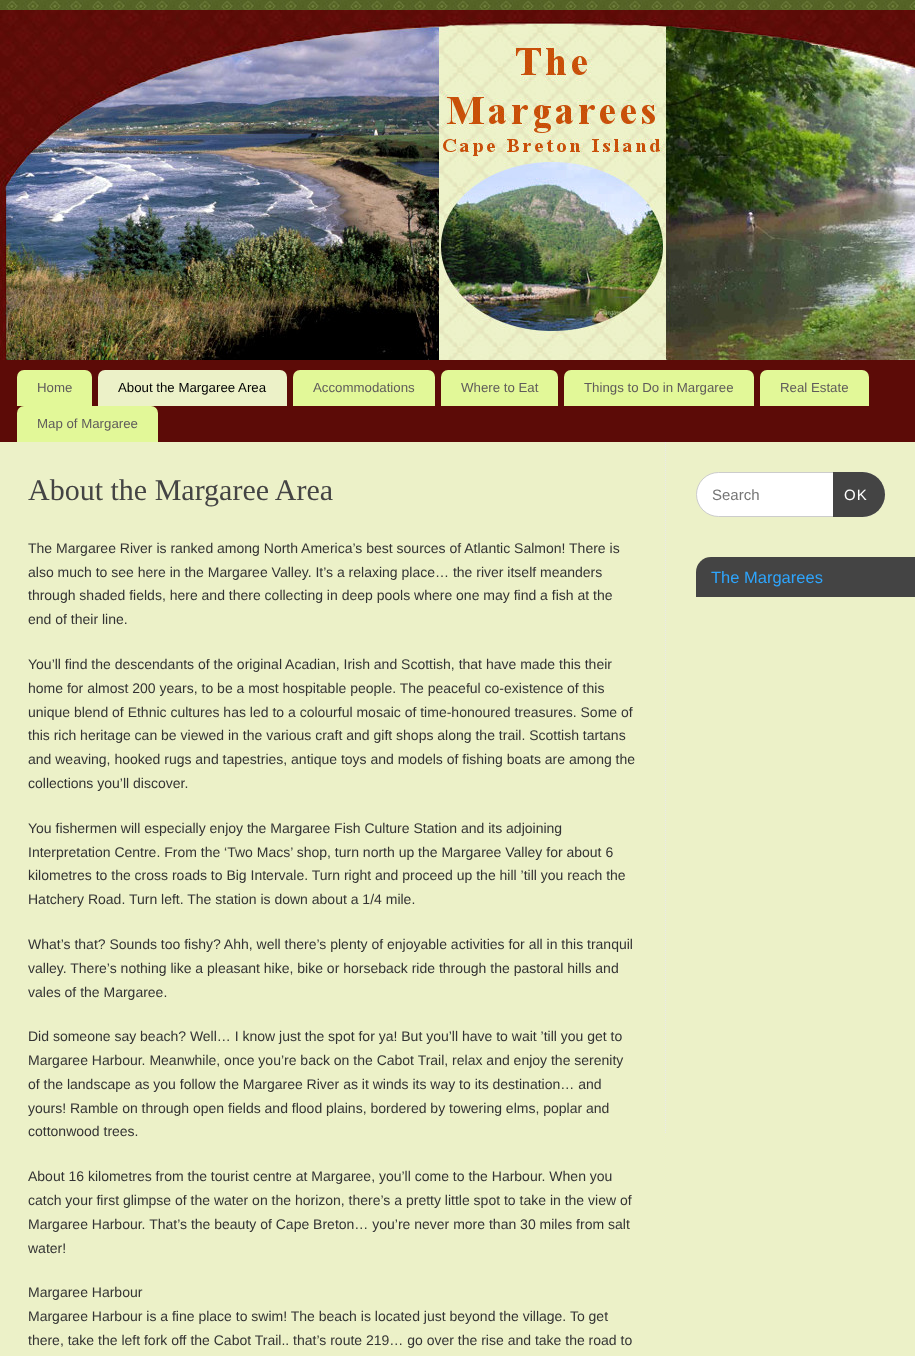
<!DOCTYPE html>
<meta charset="utf-8">
<style>body { margin: 0 } canvas { display: block }</style>
<canvas id="canvas" width="915" height="1356"></canvas>
<img id="img1" src="images/1.png" hidden>
<img id="img2" src="images/2.png" hidden>
<script>
window.onload = function () {
    const canvas = document.getElementById('canvas');
    const context = canvas.getContext('2d');
    context.miterLimit = 4;
    context.fontKerning = 'normal';

    context.fillStyle = 'rgb(255, 255, 255)';
    context.fillRect(0, 0, 915, 1356);
    context.drawImage(document.getElementById('img1'), 0, 0, 915, 10);
    context.fillStyle = 'rgb(92, 11, 7)';
    context.fillRect(0, 360, 915, 82);
    context.drawImage(document.getElementById('img2'), 0, 10, 915, 350);
    context.fillStyle = 'rgb(226, 248, 152)';
    context.beginPath();
    context.roundRect(17, 370, 75, 36, [7, 7, 0, 0]);
    context.fill();
    context.fillStyle = 'rgb(236, 241, 200)';
    context.beginPath();
    context.roundRect(98, 370, 189, 36, [7, 7, 0, 0]);
    context.fill();
    context.fillStyle = 'rgb(226, 248, 152)';
    context.beginPath();
    context.roundRect(293, 370, 142, 36, [7, 7, 0, 0]);
    context.fill();
    context.beginPath();
    context.roundRect(441, 370, 117, 36, [7, 7, 0, 0]);
    context.fill();
    context.beginPath();
    context.roundRect(564, 370, 190, 36, [7, 7, 0, 0]);
    context.fill();
    context.beginPath();
    context.roundRect(760, 370, 109, 36, [7, 7, 0, 0]);
    context.fill();
    context.beginPath();
    context.roundRect(17, 406, 141, 36, [7, 7, 0, 0]);
    context.fill();
    context.fillStyle = 'rgb(236, 241, 200)';
    context.fillRect(0, 442, 915, 914);
    context.beginPath();
    context.moveTo(665.5, 442);
    context.lineTo(665.5, 1134);
    context.strokeStyle = 'rgb(234, 234, 234)';
    context.setLineDash([1, 1]);
    context.stroke();
    context.fillStyle = 'rgb(255, 255, 255)';
    context.beginPath();
    context.roundRect(696.5, 472.5, 188, 44, 22);
    context.fill();
    context.strokeStyle = 'rgb(204, 204, 204)';
    context.setLineDash([]);
    context.stroke();
    context.fillStyle = 'rgb(68, 68, 68)';
    context.beginPath();
    context.roundRect(833, 472, 52, 45, [0, 22.5, 22.5, 0]);
    context.fill();
    context.beginPath();
    context.roundRect(696, 557, 219, 40, [15, 0, 0, 0]);
    context.fill();
    context.font = '13.25px Liberation Sans';
    context.fillStyle = 'rgb(95, 91, 91)';
    context.fillText('Home', 37, 392);
    context.fillStyle = 'rgb(0, 0, 0)';
    context.fillText('About the Margaree Area', 118, 392);
    context.fillStyle = 'rgb(95, 91, 91)';
    context.fillText('Accommodations', 313, 392);
    context.fillText('Where to Eat', 461, 392);
    context.fillText('Things to Do in Margaree', 584, 392);
    context.fillText('Real Estate', 780, 392);
    context.fillText('Map of Margaree', 37, 428);
    context.font = '30px Liberation Serif';
    context.fillStyle = 'rgb(68, 68, 68)';
    context.fillText('About the Margaree Area', 28, 500);
    context.font = '14px Liberation Sans';
    context.fillStyle = 'rgb(51, 51, 51)';
    context.fillText('The Margaree River is ranked among North America’s best sources of Atlantic Salmon! There is', 28, 553);
    context.fillText('also much to see here in the Margaree Valley. It’s a relaxing place… the river itself meanders', 28, 577);
    context.fillText('through shaded fields, here and there collecting in deep pools where one may find a fish at the', 28, 600);
    context.fillText('end of their line.', 28, 624);
    context.fillText('You’ll find the descendants of the original Acadian, Irish and Scottish, that have made this their', 28, 669);
    context.fillText('home for almost 200 years, to be a most hospitable people. The peaceful co-existence of this', 28, 693);
    context.fillText('unique blend of Ethnic cultures has led to a colourful mosaic of time-honoured treasures. Some of', 28, 717);
    context.fillText('this rich heritage can be viewed in the various craft and gift shops along the trail. Scottish tartans', 28, 740);
    context.fillText('and weaving, hooked rugs and tapestries, antique toys and models of fishing boats are among the', 28, 764);
    context.fillText('collections you’ll discover.', 28, 788);
    context.fillText('You fishermen will especially enjoy the Margaree Fish Culture Station and its adjoining', 28, 833);
    context.fillText('Interpretation Centre. From the ‘Two Macs’ shop, turn north up the Margaree Valley for about 6', 28, 857);
    context.fillText('kilometres to the cross roads to Big Intervale. Turn right and proceed up the hill ’till you reach the', 28, 880);
    context.fillText('Hatchery Road. Turn left. The station is down about a 1/4 mile.', 28, 904);
    context.fillText('What’s that? Sounds too fishy? Ahh, well there’s plenty of enjoyable activities for all in this tranquil', 28, 949);
    context.fillText('valley. There’s nothing like a pleasant hike, bike or horseback ride through the pastoral hills and', 28, 973);
    context.fillText('vales of the Margaree.', 28, 997);
    context.fillText('Did someone say beach? Well… I know just the spot for ya! But you’ll have to wait ’till you get to', 28, 1041);
    context.fillText('Margaree Harbour. Meanwhile, once you’re back on the Cabot Trail, relax and enjoy the serenity', 28, 1065);
    context.fillText('of the landscape as you follow the Margaree River as it winds its way to its destination… and', 28, 1089);
    context.fillText('yours! Ramble on through open fields and flood plains, bordered by towering elms, poplar and', 28, 1113);
    context.fillText('cottonwood trees.', 28, 1136);
    context.fillText('About 16 kilometres from the tourist centre at Margaree, you’ll come to the Harbour. When you', 28, 1181);
    context.fillText('catch your first glimpse of the water on the horizon, there’s a pretty little spot to take in the view of', 28, 1205);
    context.fillText('Margaree Harbour. That’s the beauty of Cape Breton… you’re never more than 30 miles from salt', 28, 1229);
    context.fillText('water!', 28, 1253);
    context.fillText('Margaree Harbour', 28, 1297);
    context.fillText('Margaree Harbour is a fine place to swim! The beach is located just beyond the village. To get', 28, 1321);
    context.fillText('there, take the left fork off the Cabot Trail.. that’s route 219… go over the rise and take the road to', 28, 1345);
    context.font = '15px Liberation Sans';
    context.fillStyle = 'rgb(117, 117, 117)';
    context.fillText('Search', 712, 500);
    context.letterSpacing = '1px';
    context.fillStyle = 'rgb(255, 255, 255)';
    context.fillText('OK', 844, 500);
    context.letterSpacing = '0px';
    context.font = '16.5px Liberation Sans';
    context.fillStyle = 'rgb(46, 165, 253)';
    context.fillText('The Margarees', 711, 583);
};
</script>
